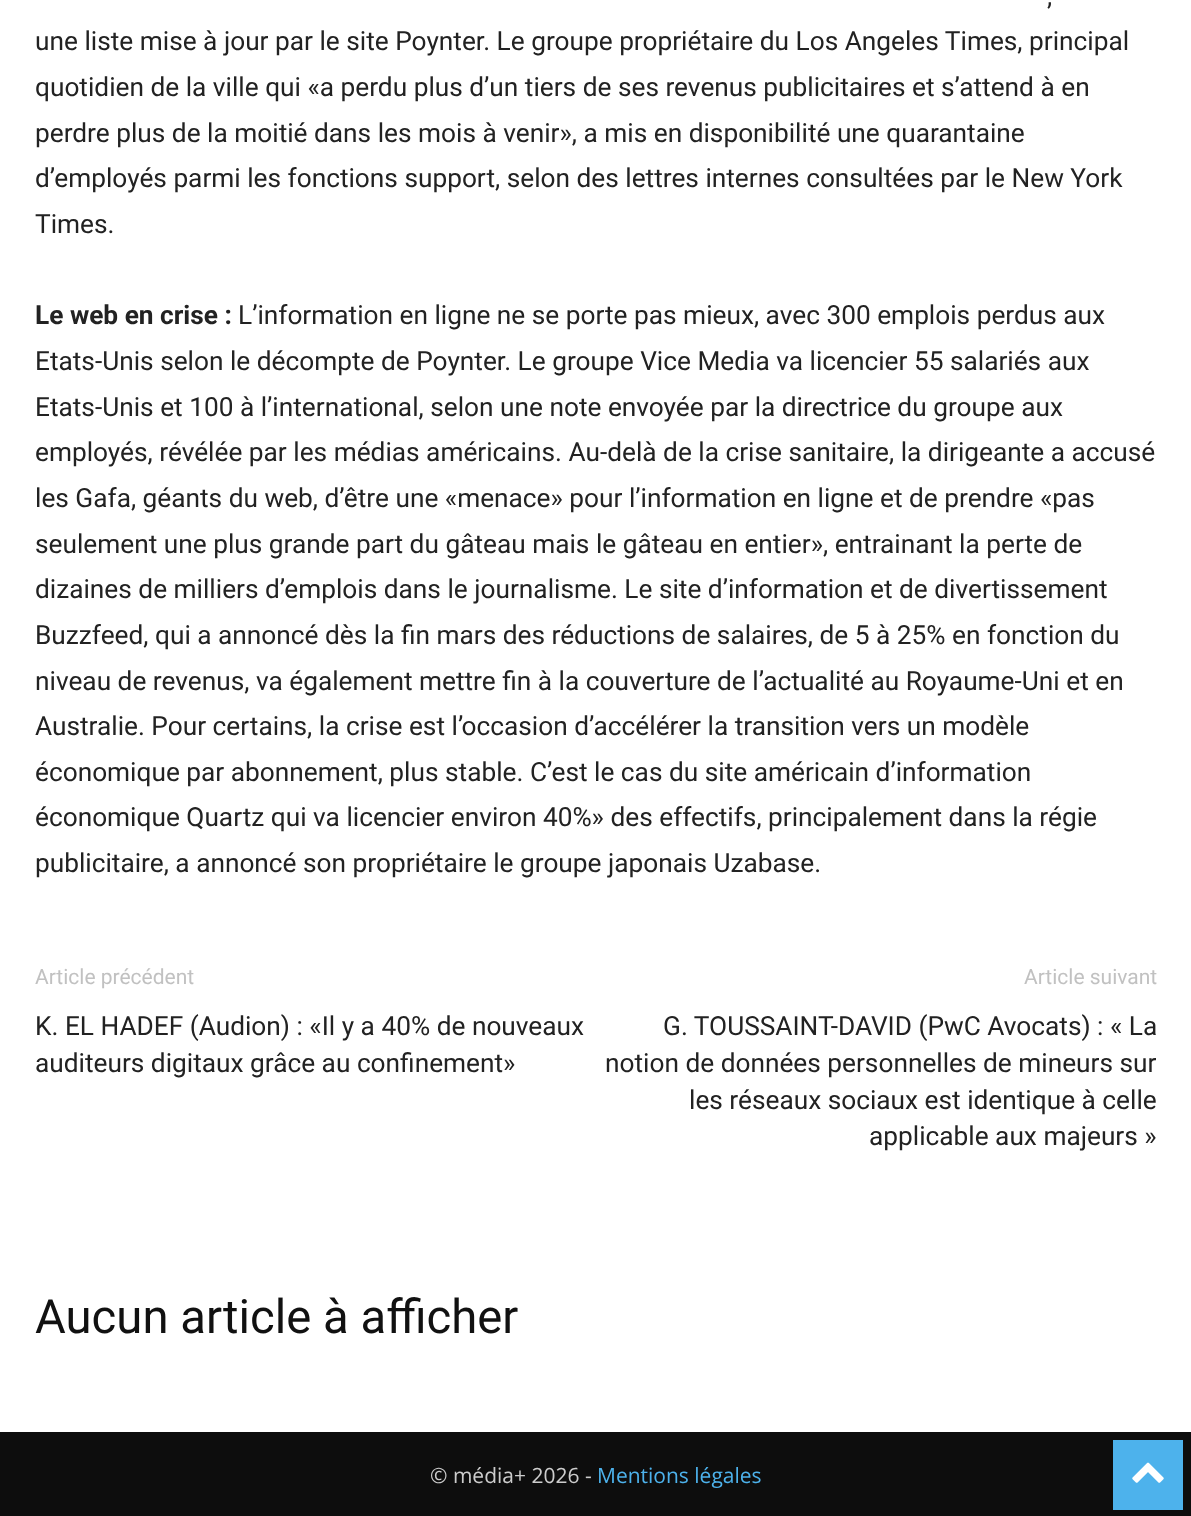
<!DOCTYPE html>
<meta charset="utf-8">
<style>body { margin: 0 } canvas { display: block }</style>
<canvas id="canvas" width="1191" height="1516"></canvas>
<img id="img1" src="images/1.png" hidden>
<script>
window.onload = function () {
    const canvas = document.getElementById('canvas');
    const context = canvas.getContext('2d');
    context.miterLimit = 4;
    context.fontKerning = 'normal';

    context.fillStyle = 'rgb(255, 255, 255)';
    context.fillRect(0, 0, 1191, 1516);
    context.fillStyle = 'rgb(13, 13, 13)';
    context.fillRect(0, 1432, 1191, 84);
    context.fillStyle = 'rgb(77, 178, 236)';
    context.fillRect(1113, 1440, 70, 70);
    context.drawImage(document.getElementById('img1'), 1132, 1462, 32, 21);
    context.font = '26.25px Roboto';
    context.fillStyle = 'rgb(34, 34, 34)';
    context.fillText(',', 1047, 5);
    context.fillText('une liste mise à jour par le site Poynter. Le groupe propriétaire du Los Angeles Times, principal', 35, 50);
    context.fillText('quotidien de la ville qui «a perdu plus d’un tiers de ses revenus publicitaires et s’attend à en', 35, 96);
    context.fillText('perdre plus de la moitié dans les mois à venir», a mis en disponibilité une quarantaine', 35, 142);
    context.fillText('d’employés parmi les fonctions support, selon des lettres internes consultées par le New York', 35, 187);
    context.fillText('Times.', 35, 233);
    context.font = 'bold 26.25px Roboto';
    context.fillText('Le web en crise :', 35, 324);
    context.font = '26.25px Roboto';
    context.fillText('L’information en ligne ne se porte pas mieux, avec 300 emplois perdus aux', 238, 324);
    context.fillText('Etats-Unis selon le décompte de Poynter. Le groupe Vice Media va licencier 55 salariés aux', 35, 370);
    context.fillText('Etats-Unis et 100 à l’international, selon une note envoyée par la directrice du groupe aux', 35, 416);
    context.fillText('employés, révélée par les médias américains. Au-delà de la crise sanitaire, la dirigeante a accusé', 35, 461);
    context.fillText('les Gafa, géants du web, d’être une «menace» pour l’information en ligne et de prendre «pas', 35, 507);
    context.fillText('seulement une plus grande part du gâteau mais le gâteau en entier», entrainant la perte de', 35, 553);
    context.fillText('dizaines de milliers d’emplois dans le journalisme. Le site d’information et de divertissement', 35, 598);
    context.fillText('Buzzfeed, qui a annoncé dès la fin mars des réductions de salaires, de 5 à 25% en fonction du', 35, 644);
    context.fillText('niveau de revenus, va également mettre fin à la couverture de l’actualité au Royaume-Uni et en', 35, 690);
    context.fillText('Australie. Pour certains, la crise est l’occasion d’accélérer la transition vers un modèle', 35, 735);
    context.fillText('économique par abonnement, plus stable. C’est le cas du site américain d’information', 35, 781);
    context.fillText('économique Quartz qui va licencier environ 40%» des effectifs, principalement dans la régie', 35, 826);
    context.fillText('publicitaire, a annoncé son propriétaire le groupe japonais Uzabase.', 35, 872);
    context.font = '21px Roboto';
    context.fillStyle = 'rgb(193, 193, 193)';
    context.fillText('Article précédent', 35, 984);
    context.font = '26.25px Roboto';
    context.fillStyle = 'rgb(34, 34, 34)';
    context.fillText('K. EL HADEF (Audion) : «Il y a 40% de nouveaux', 35, 1035);
    context.fillText('auditeurs digitaux grâce au confinement»', 35, 1072);
    context.font = '21px Roboto';
    context.fillStyle = 'rgb(193, 193, 193)';
    context.fillText('Article suivant', 1024, 984);
    context.font = '26.25px Roboto';
    context.fillStyle = 'rgb(34, 34, 34)';
    context.fillText('G. TOUSSAINT-DAVID (PwC Avocats) : « La', 663, 1035);
    context.fillText('notion de données personnelles de mineurs sur', 605, 1072);
    context.fillText('les réseaux sociaux est identique à celle', 689, 1109);
    context.fillText('applicable aux majeurs »', 869, 1145);
    context.font = '47.25px Roboto';
    context.fillStyle = 'rgb(17, 17, 17)';
    context.fillText('Aucun article à afficher', 35, 1333);
    context.font = '21px Open Sans';
    context.fillStyle = 'rgb(204, 204, 204)';
    context.fillText('© média+ 2026 -', 430, 1483);
    context.fillStyle = 'rgb(77, 178, 236)';
    context.fillText('Mentions légales', 597, 1483);
};
</script>
